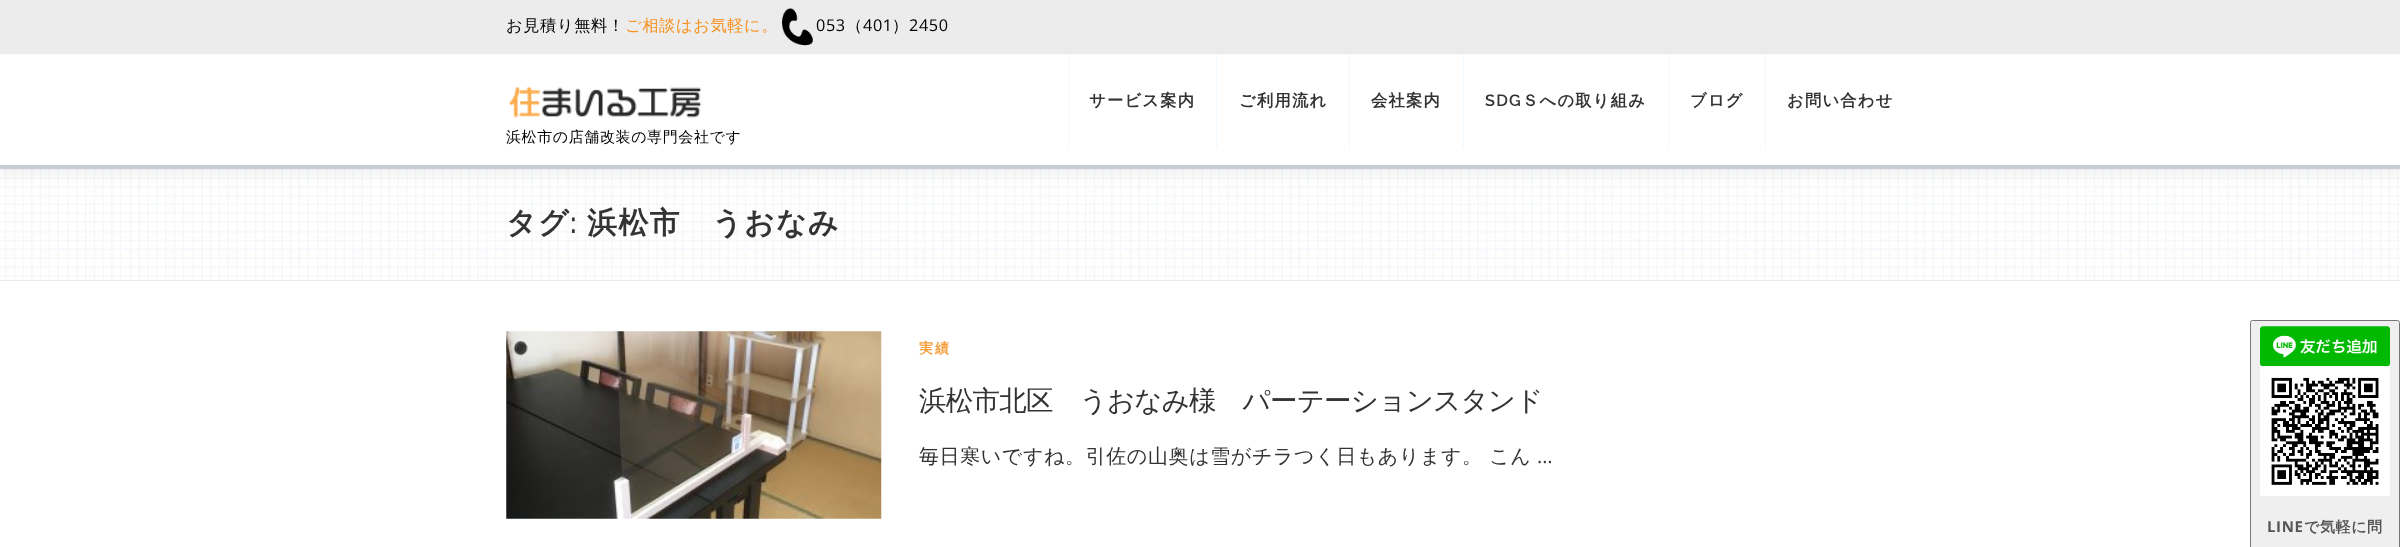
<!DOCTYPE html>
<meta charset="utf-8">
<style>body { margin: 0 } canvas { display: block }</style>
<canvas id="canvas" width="2400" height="547"></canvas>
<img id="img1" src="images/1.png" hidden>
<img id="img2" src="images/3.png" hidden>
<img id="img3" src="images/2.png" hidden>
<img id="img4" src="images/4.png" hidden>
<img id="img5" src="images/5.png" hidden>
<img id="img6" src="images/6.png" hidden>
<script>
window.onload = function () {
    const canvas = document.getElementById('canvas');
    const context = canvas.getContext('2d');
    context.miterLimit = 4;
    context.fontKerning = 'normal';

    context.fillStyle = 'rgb(255, 255, 255)';
    context.fillRect(0, 0, 2400, 547);
    context.fillStyle = 'rgb(236, 236, 236)';
    context.fillRect(0, 0, 2400, 54);
    context.drawImage(document.getElementById('img1'), 782, 8, 31, 38);
    context.drawImage(document.getElementById('img2'), 0, 169, 2400, 111);
    context.fillStyle = 'rgba(50, 50, 50, 0.06)';
    context.filter = 'blur(6px)';
    context.beginPath();
    context.rect(0, 60, 2400, 115);
    context.fill();
    context.filter = 'none';
    context.fillStyle = 'rgb(255, 255, 255)';
    context.fillRect(0, 55, 2400, 110);
    context.fillStyle = 'rgb(199, 206, 213)';
    context.fillRect(0, 165, 2400, 4);
    context.fillStyle = 'rgb(240, 248, 255)';
    context.fillRect(1068, 54, 1, 94);
    context.fillRect(1216, 54, 1, 94);
    context.fillRect(1349, 54, 1, 94);
    context.fillRect(1463, 54, 1, 94);
    context.fillRect(1668, 54, 1, 94);
    context.fillRect(1765, 54, 1, 94);
    context.drawImage(document.getElementById('img3'), 508, 87, 194, 31);
    context.fillStyle = 'rgb(233, 233, 233)';
    context.fillRect(0, 280, 2400, 1);
    context.drawImage(document.getElementById('img4'), 506, 331, 376, 188);
    context.fillStyle = 'rgb(239, 239, 239)';
    context.beginPath();
    context.roundRect(2250.5, 320.5, 149, 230, 2);
    context.fill();
    context.strokeStyle = 'rgb(118, 118, 118)';
    context.stroke();
    context.drawImage(document.getElementById('img5'), 2260, 326, 130, 41);
    context.drawImage(document.getElementById('img6'), 2260, 366, 130, 130);
    context.letterSpacing = '0.6px';
    context.font = '500 16.25px WenQuanYi Zen Hei';
    context.fillStyle = 'rgb(0, 0, 0)';
    context.fillText('お見積り無料！', 506, 31);
    context.fillStyle = 'rgb(248, 144, 28)';
    context.fillText('ご相談はお気軽に。', 625, 31);
    context.font = '16.25px Open Sans';
    context.fillStyle = 'rgb(0, 0, 0)';
    context.fillText('053', 816, 31);
    context.font = '500 16.25px WenQuanYi Zen Hei';
    context.fillText('（', 846, 31);
    context.font = '16.25px Open Sans';
    context.fillText('401', 863, 31);
    context.font = '500 16.25px WenQuanYi Zen Hei';
    context.fillText('）', 892, 31);
    context.font = '16.25px Open Sans';
    context.fillText('2450', 909, 31);
    context.letterSpacing = '1.25px';
    context.font = 'bold 16.25px WenQuanYi Zen Hei';
    context.fillStyle = 'rgb(51, 51, 51)';
    context.fillText('サービス案内', 1089, 106);
    context.fillText('ご利用流れ', 1239, 106);
    context.fillText('会社案内', 1371, 106);
    context.font = '600 16.25px Raleway';
    context.fillText('SDG', 1485, 106);
    context.font = 'bold 16.25px WenQuanYi Zen Hei';
    context.fillText('Ｓへの取り組み', 1522, 106);
    context.fillText('ブログ', 1690, 106);
    context.fillText('お問い合わせ', 1787, 106);
    context.letterSpacing = '0.6px';
    context.font = '500 15px WenQuanYi Zen Hei';
    context.fillStyle = 'rgb(0, 0, 0)';
    context.fillText('浜松市の店舗改装の専門会社です', 506, 142);
    context.letterSpacing = '1.25px';
    context.font = 'bold 30px WenQuanYi Zen Hei';
    context.fillStyle = 'rgb(51, 51, 51)';
    context.fillText('タグ', 506, 233);
    context.font = '600 30px Raleway';
    context.fillText(':', 570, 233);
    context.font = 'bold 30px WenQuanYi Zen Hei';
    context.fillText('浜松市　うおなみ', 587, 233);
    context.letterSpacing = '2px';
    context.font = 'bold 14px WenQuanYi Zen Hei';
    context.fillStyle = 'rgb(246, 156, 55)';
    context.fillText('実績', 919, 353);
    context.letterSpacing = '-0.75px';
    context.font = '500 27.5px WenQuanYi Zen Hei';
    context.fillStyle = 'rgb(51, 51, 51)';
    context.fillText('浜松市北区　うおなみ様　パーテーションスタンド', 919, 410);
    context.letterSpacing = '0.6px';
    context.font = '500 20px WenQuanYi Zen Hei';
    context.fillText('毎日寒いですね。引佐の山奥は雪がチラつく日もあります。 こん', 919, 463);
    context.font = '20px Open Sans';
    context.fillText('…', 1537, 463);
    context.font = 'bold 15px Open Sans';
    context.fillStyle = 'rgb(85, 85, 85)';
    context.fillText('LINE', 2267, 532);
    context.font = 'bold 15px WenQuanYi Zen Hei';
    context.fillText('で気軽に問', 2304, 532);
};
</script>
